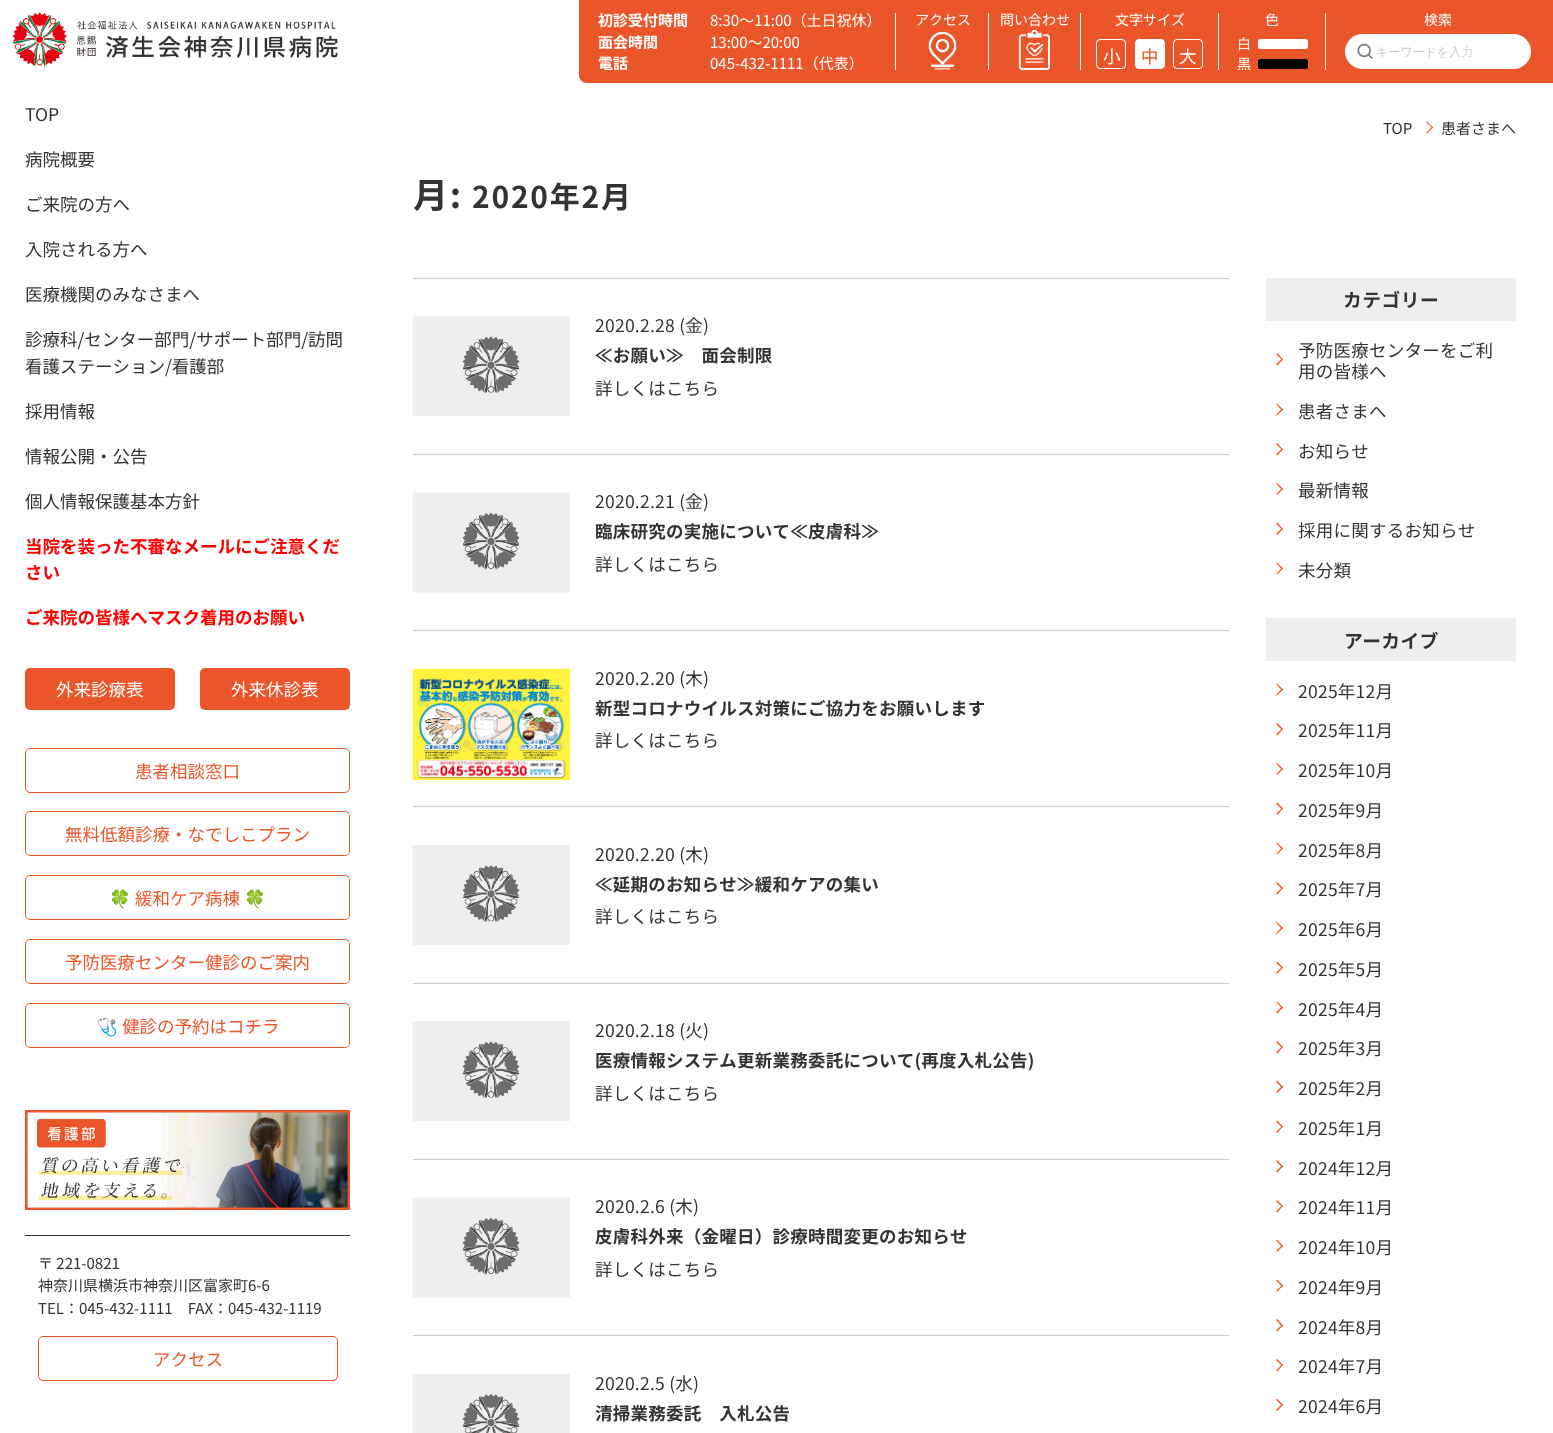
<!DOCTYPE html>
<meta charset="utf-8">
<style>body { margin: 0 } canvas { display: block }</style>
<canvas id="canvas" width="1553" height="1433"></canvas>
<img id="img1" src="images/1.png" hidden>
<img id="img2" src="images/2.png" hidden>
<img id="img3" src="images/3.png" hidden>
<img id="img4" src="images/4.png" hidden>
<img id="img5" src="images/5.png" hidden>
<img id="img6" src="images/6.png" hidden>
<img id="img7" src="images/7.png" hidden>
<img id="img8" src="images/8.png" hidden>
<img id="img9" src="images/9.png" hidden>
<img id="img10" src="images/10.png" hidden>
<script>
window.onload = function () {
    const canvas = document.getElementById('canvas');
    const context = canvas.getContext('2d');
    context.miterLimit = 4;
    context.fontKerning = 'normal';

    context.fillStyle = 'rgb(255, 255, 255)';
    context.fillRect(0, 0, 1553, 1433);
    context.drawImage(document.getElementById('img1'), 12, 12, 326, 55);
    context.fillStyle = 'rgb(234, 85, 41)';
    context.beginPath();
    context.moveTo(579, 0);
    context.lineTo(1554, 0);
    context.lineTo(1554, 83);
    context.lineTo(587, 83);
    context.bezierCurveTo(582.5, 83, 579, 79.5, 579, 75);
    context.closePath();
    context.fill();
    context.fillStyle = 'rgb(255, 255, 255)';
    context.fillRect(895, 13, 1, 57);
    context.drawImage(document.getElementById('img2'), 928, 31, 29, 39);
    context.fillRect(988, 13, 1, 57);
    context.drawImage(document.getElementById('img3'), 1018, 30, 32, 40);
    context.fillRect(1080, 13, 1, 57);
    context.beginPath();
    context.roundRect(1096.5, 39.5, 29, 29, 3.5);
    context.strokeStyle = 'rgb(255, 255, 255)';
    context.stroke();
    context.beginPath();
    context.roundRect(1135.5, 39.5, 29, 29, 3.5);
    context.stroke();
    context.fillRect(1136, 40, 28, 28);
    context.beginPath();
    context.roundRect(1173.5, 39.5, 29, 29, 3.5);
    context.stroke();
    context.fillRect(1218, 13, 1, 57);
    context.beginPath();
    context.roundRect(1258, 39, 50, 10, 2.5);
    context.fill();
    context.fillStyle = 'rgb(0, 0, 0)';
    context.beginPath();
    context.roundRect(1258, 59, 50, 10, 2.5);
    context.fill();
    context.fillStyle = 'rgb(255, 255, 255)';
    context.fillRect(1325, 13, 1, 57);
    context.beginPath();
    context.roundRect(1345, 34, 186, 35, 17.5);
    context.fill();
    context.drawImage(document.getElementById('img4'), 1357, 43, 16, 16);
    context.fillStyle = 'rgb(234, 85, 41)';
    context.beginPath();
    context.roundRect(25, 668, 150, 42, 5);
    context.fill();
    context.beginPath();
    context.roundRect(200, 668, 150, 42, 5);
    context.fill();
    context.beginPath();
    context.roundRect(25.5, 748.5, 324, 44, 4.5);
    context.strokeStyle = 'rgb(234, 85, 41)';
    context.stroke();
    context.beginPath();
    context.roundRect(25.5, 811.5, 324, 44, 4.5);
    context.stroke();
    context.beginPath();
    context.roundRect(25.5, 875.5, 324, 44, 4.5);
    context.stroke();
    context.beginPath();
    context.roundRect(25.5, 939.5, 324, 44, 4.5);
    context.stroke();
    context.beginPath();
    context.roundRect(25.5, 1003.5, 324, 44, 4.5);
    context.stroke();
    context.drawImage(document.getElementById('img5'), 25, 1110, 325, 100);
    context.fillStyle = 'rgb(51, 51, 51)';
    context.fillRect(25, 1235, 325, 1);
    context.beginPath();
    context.roundRect(38.5, 1336.5, 299, 44, 4.5);
    context.stroke();
    context.fillStyle = 'rgb(234, 85, 41)';
    context.beginPath();
    context.moveTo(1427, 121.5);
    context.lineTo(1433, 127.5);
    context.lineTo(1432.5, 128.5);
    context.lineTo(1426, 122);
    context.closePath();
    context.fill();
    context.beginPath();
    context.moveTo(1432.5, 126.5);
    context.lineTo(1433, 127.5);
    context.lineTo(1427, 133.5);
    context.lineTo(1426, 133);
    context.closePath();
    context.fill();
    context.fillStyle = 'rgb(204, 204, 204)';
    context.fillRect(413, 278, 816, 1);
    context.fillRect(413, 454, 816, 1);
    context.drawImage(document.getElementById('img6'), 412, 316, 158, 101);
    context.fillRect(413, 630, 816, 1);
    context.drawImage(document.getElementById('img7'), 412, 492, 158, 101);
    context.fillRect(413, 806, 816, 1);
    context.drawImage(document.getElementById('img8'), 412, 668, 158, 112);
    context.fillRect(413, 983, 816, 1);
    context.drawImage(document.getElementById('img9'), 412, 845, 158, 100);
    context.fillRect(413, 1159, 816, 1);
    context.drawImage(document.getElementById('img6'), 412, 1021, 158, 101);
    context.fillRect(413, 1335, 816, 1);
    context.drawImage(document.getElementById('img7'), 412, 1197, 158, 101);
    context.drawImage(document.getElementById('img10'), 412, 1373, 158, 60);
    context.fillStyle = 'rgb(238, 238, 238)';
    context.fillRect(1266, 278, 250, 43);
    context.fillStyle = 'rgb(234, 85, 41)';
    context.beginPath();
    context.moveTo(1277, 353);
    context.lineTo(1283, 359.5);
    context.lineTo(1282, 360);
    context.lineTo(1276, 354);
    context.closePath();
    context.fill();
    context.beginPath();
    context.moveTo(1282, 358.5);
    context.lineTo(1283, 359.5);
    context.lineTo(1277, 365.5);
    context.lineTo(1276, 364.5);
    context.closePath();
    context.fill();
    context.beginPath();
    context.moveTo(1277, 403.5);
    context.lineTo(1283, 409.5);
    context.lineTo(1282, 410.5);
    context.lineTo(1276, 404);
    context.closePath();
    context.fill();
    context.beginPath();
    context.moveTo(1282, 408.5);
    context.lineTo(1283, 409.5);
    context.lineTo(1277, 415.5);
    context.lineTo(1276, 415);
    context.closePath();
    context.fill();
    context.beginPath();
    context.moveTo(1277, 443);
    context.lineTo(1283, 449.5);
    context.lineTo(1282, 450);
    context.lineTo(1276, 444);
    context.closePath();
    context.fill();
    context.beginPath();
    context.moveTo(1282, 448.5);
    context.lineTo(1283, 449.5);
    context.lineTo(1277, 455.5);
    context.lineTo(1276, 454.5);
    context.closePath();
    context.fill();
    context.beginPath();
    context.moveTo(1277, 483);
    context.lineTo(1283, 489);
    context.lineTo(1282, 490);
    context.lineTo(1276, 483.5);
    context.closePath();
    context.fill();
    context.beginPath();
    context.moveTo(1282, 488);
    context.lineTo(1283, 489);
    context.lineTo(1277, 495);
    context.lineTo(1276, 494.5);
    context.closePath();
    context.fill();
    context.beginPath();
    context.moveTo(1277, 522.5);
    context.lineTo(1283, 529);
    context.lineTo(1282, 529.5);
    context.lineTo(1276, 523.5);
    context.closePath();
    context.fill();
    context.beginPath();
    context.moveTo(1282, 528);
    context.lineTo(1283, 529);
    context.lineTo(1277, 535);
    context.lineTo(1276, 534);
    context.closePath();
    context.fill();
    context.beginPath();
    context.moveTo(1277, 562.5);
    context.lineTo(1283, 568.5);
    context.lineTo(1282, 569.5);
    context.lineTo(1276, 563);
    context.closePath();
    context.fill();
    context.beginPath();
    context.moveTo(1282, 567.5);
    context.lineTo(1283, 568.5);
    context.lineTo(1277, 574.5);
    context.lineTo(1276, 574);
    context.closePath();
    context.fill();
    context.fillStyle = 'rgb(238, 238, 238)';
    context.fillRect(1266, 618, 250, 43);
    context.fillStyle = 'rgb(234, 85, 41)';
    context.beginPath();
    context.moveTo(1277, 683.5);
    context.lineTo(1283, 689.5);
    context.lineTo(1282, 690.5);
    context.lineTo(1276, 684);
    context.closePath();
    context.fill();
    context.beginPath();
    context.moveTo(1282, 688.5);
    context.lineTo(1283, 689.5);
    context.lineTo(1277, 695.5);
    context.lineTo(1276, 695);
    context.closePath();
    context.fill();
    context.beginPath();
    context.moveTo(1277, 723);
    context.lineTo(1283, 729);
    context.lineTo(1282, 730);
    context.lineTo(1276, 724);
    context.closePath();
    context.fill();
    context.beginPath();
    context.moveTo(1282, 728.5);
    context.lineTo(1283, 729);
    context.lineTo(1277, 735.5);
    context.lineTo(1276, 734.5);
    context.closePath();
    context.fill();
    context.beginPath();
    context.moveTo(1277, 763);
    context.lineTo(1283, 769);
    context.lineTo(1282, 770);
    context.lineTo(1276, 763.5);
    context.closePath();
    context.fill();
    context.beginPath();
    context.moveTo(1282, 768);
    context.lineTo(1283, 769);
    context.lineTo(1277, 775);
    context.lineTo(1276, 774.5);
    context.closePath();
    context.fill();
    context.beginPath();
    context.moveTo(1277, 802.5);
    context.lineTo(1283, 808.5);
    context.lineTo(1282, 809.5);
    context.lineTo(1276, 803.5);
    context.closePath();
    context.fill();
    context.beginPath();
    context.moveTo(1282, 808);
    context.lineTo(1283, 808.5);
    context.lineTo(1277, 815);
    context.lineTo(1276, 814);
    context.closePath();
    context.fill();
    context.beginPath();
    context.moveTo(1277, 842.5);
    context.lineTo(1283, 848.5);
    context.lineTo(1282, 849.5);
    context.lineTo(1276, 843);
    context.closePath();
    context.fill();
    context.beginPath();
    context.moveTo(1282, 847.5);
    context.lineTo(1283, 848.5);
    context.lineTo(1277, 854.5);
    context.lineTo(1276, 854);
    context.closePath();
    context.fill();
    context.beginPath();
    context.moveTo(1277, 882);
    context.lineTo(1283, 888);
    context.lineTo(1282, 889);
    context.lineTo(1276, 883);
    context.closePath();
    context.fill();
    context.beginPath();
    context.moveTo(1282, 887.5);
    context.lineTo(1283, 888);
    context.lineTo(1277, 894.5);
    context.lineTo(1276, 893.5);
    context.closePath();
    context.fill();
    context.beginPath();
    context.moveTo(1277, 922);
    context.lineTo(1283, 928);
    context.lineTo(1282, 929);
    context.lineTo(1276, 922.5);
    context.closePath();
    context.fill();
    context.beginPath();
    context.moveTo(1282, 927);
    context.lineTo(1283, 928);
    context.lineTo(1277, 934);
    context.lineTo(1276, 933.5);
    context.closePath();
    context.fill();
    context.beginPath();
    context.moveTo(1277, 961.5);
    context.lineTo(1283, 967.5);
    context.lineTo(1282, 968.5);
    context.lineTo(1276, 962.5);
    context.closePath();
    context.fill();
    context.beginPath();
    context.moveTo(1282, 967);
    context.lineTo(1283, 967.5);
    context.lineTo(1277, 974);
    context.lineTo(1276, 973);
    context.closePath();
    context.fill();
    context.beginPath();
    context.moveTo(1277, 1001.5);
    context.lineTo(1283, 1007.5);
    context.lineTo(1282, 1008.5);
    context.lineTo(1276, 1002);
    context.closePath();
    context.fill();
    context.beginPath();
    context.moveTo(1282, 1006.5);
    context.lineTo(1283, 1007.5);
    context.lineTo(1277, 1013.5);
    context.lineTo(1276, 1012.5);
    context.closePath();
    context.fill();
    context.beginPath();
    context.moveTo(1277, 1041);
    context.lineTo(1283, 1047);
    context.lineTo(1282, 1048);
    context.lineTo(1276, 1042);
    context.closePath();
    context.fill();
    context.beginPath();
    context.moveTo(1282, 1046.5);
    context.lineTo(1283, 1047);
    context.lineTo(1277, 1053.5);
    context.lineTo(1276, 1052.5);
    context.closePath();
    context.fill();
    context.beginPath();
    context.moveTo(1277, 1080.5);
    context.lineTo(1283, 1087);
    context.lineTo(1282, 1088);
    context.lineTo(1276, 1081.5);
    context.closePath();
    context.fill();
    context.beginPath();
    context.moveTo(1282, 1086);
    context.lineTo(1283, 1087);
    context.lineTo(1277, 1093);
    context.lineTo(1276, 1092);
    context.closePath();
    context.fill();
    context.beginPath();
    context.moveTo(1277, 1120.5);
    context.lineTo(1283, 1126.5);
    context.lineTo(1282, 1127.5);
    context.lineTo(1276, 1121.5);
    context.closePath();
    context.fill();
    context.beginPath();
    context.moveTo(1282, 1126);
    context.lineTo(1283, 1126.5);
    context.lineTo(1277, 1133);
    context.lineTo(1276, 1132);
    context.closePath();
    context.fill();
    context.beginPath();
    context.moveTo(1277, 1160);
    context.lineTo(1283, 1166.5);
    context.lineTo(1282, 1167.5);
    context.lineTo(1276, 1161);
    context.closePath();
    context.fill();
    context.beginPath();
    context.moveTo(1282, 1165.5);
    context.lineTo(1283, 1166.5);
    context.lineTo(1277, 1172.5);
    context.lineTo(1276, 1171.5);
    context.closePath();
    context.fill();
    context.beginPath();
    context.moveTo(1277, 1200);
    context.lineTo(1283, 1206);
    context.lineTo(1282, 1207);
    context.lineTo(1276, 1201);
    context.closePath();
    context.fill();
    context.beginPath();
    context.moveTo(1282, 1205.5);
    context.lineTo(1283, 1206);
    context.lineTo(1277, 1212.5);
    context.lineTo(1276, 1211.5);
    context.closePath();
    context.fill();
    context.beginPath();
    context.moveTo(1277, 1239.5);
    context.lineTo(1283, 1246);
    context.lineTo(1282, 1247);
    context.lineTo(1276, 1240.5);
    context.closePath();
    context.fill();
    context.beginPath();
    context.moveTo(1282, 1245);
    context.lineTo(1283, 1246);
    context.lineTo(1277, 1252);
    context.lineTo(1276, 1251);
    context.closePath();
    context.fill();
    context.beginPath();
    context.moveTo(1277, 1279.5);
    context.lineTo(1283, 1285.5);
    context.lineTo(1282, 1286.5);
    context.lineTo(1276, 1280.5);
    context.closePath();
    context.fill();
    context.beginPath();
    context.moveTo(1282, 1285);
    context.lineTo(1283, 1285.5);
    context.lineTo(1277, 1292);
    context.lineTo(1276, 1291);
    context.closePath();
    context.fill();
    context.beginPath();
    context.moveTo(1277, 1319);
    context.lineTo(1283, 1325.5);
    context.lineTo(1282, 1326.5);
    context.lineTo(1276, 1320);
    context.closePath();
    context.fill();
    context.beginPath();
    context.moveTo(1282, 1324.5);
    context.lineTo(1283, 1325.5);
    context.lineTo(1277, 1331.5);
    context.lineTo(1276, 1330.5);
    context.closePath();
    context.fill();
    context.beginPath();
    context.moveTo(1277, 1359);
    context.lineTo(1283, 1365);
    context.lineTo(1282, 1366);
    context.lineTo(1276, 1360);
    context.closePath();
    context.fill();
    context.beginPath();
    context.moveTo(1282, 1364.5);
    context.lineTo(1283, 1365);
    context.lineTo(1277, 1371.5);
    context.lineTo(1276, 1370.5);
    context.closePath();
    context.fill();
    context.beginPath();
    context.moveTo(1277, 1398.5);
    context.lineTo(1283, 1405);
    context.lineTo(1282, 1406);
    context.lineTo(1276, 1399.5);
    context.closePath();
    context.fill();
    context.beginPath();
    context.moveTo(1282, 1404);
    context.lineTo(1283, 1405);
    context.lineTo(1277, 1411);
    context.lineTo(1276, 1410);
    context.closePath();
    context.fill();
    context.font = 'bold 15px Noto Sans JP';
    context.fillStyle = 'rgb(255, 255, 255)';
    context.fillText('初診受付時間', 598, 26);
    context.font = '15px Noto Sans JP';
    context.fillText('8:30〜11:00（土日祝休）', 710, 26);
    context.save();
    context.beginPath();
    context.rect(598, 34, 297, 15);
    context.clip();
    context.font = 'bold 15px Noto Sans JP';
    context.fillText('面会時間', 598, 48);
    context.restore();
    context.fillText('13:00〜20:00', 710, 48);
    context.save();
    context.beginPath();
    context.rect(598, 55, 297, 15);
    context.clip();
    context.font = 'bold 15px Noto Sans JP';
    context.fillText('電話', 598, 69);
    context.font = '15px Noto Sans JP';
    context.fillText('045-432-1111（代表）', 710, 69);
    context.restore();
    context.font = '14px Noto Sans JP';
    context.fillText('アクセス', 915, 25);
    context.fillText('問い合わせ', 1000, 25);
    context.fillText('文字サイズ', 1115, 25);
    context.font = '17.5px Noto Sans JP';
    context.fillText('小', 1103, 63);
    context.fillStyle = 'rgb(234, 85, 41)';
    context.fillText('中', 1141, 63);
    context.fillStyle = 'rgb(255, 255, 255)';
    context.fillText('大', 1179, 63);
    context.font = '14px Noto Sans JP';
    context.fillText('色', 1265, 25);
    context.fillText('白', 1237, 49);
    context.fillText('黒', 1237, 69);
    context.fillText('検索', 1424, 25);
    context.font = '500 12px WenQuanYi Zen Hei';
    context.fillStyle = 'rgb(204, 204, 204)';
    context.fillText('キーワードを入力', 1376, 56);
    context.font = '17.5px Noto Sans JP';
    context.fillStyle = 'rgb(51, 51, 51)';
    context.fillText('TOP', 25, 121);
    context.fillText('病院概要', 25, 166);
    context.fillText('ご来院の方へ', 25, 211);
    context.fillText('入院される方へ', 25, 256);
    context.fillText('医療機関のみなさまへ', 25, 301);
    context.fillText('診療科/センター部門/サポート部門/訪問', 25, 346);
    context.fillText('看護ステーション/看護部', 25, 373);
    context.fillText('採用情報', 25, 418);
    context.fillText('情報公開・公告', 25, 463);
    context.fillText('個人情報保護基本方針', 25, 508);
    context.font = 'bold 17.5px Noto Sans JP';
    context.fillStyle = 'rgb(255, 0, 0)';
    context.fillText('当院を装った不審なメールにご注意くだ', 25, 553);
    context.fillText('さい', 25, 579);
    context.fillText('ご来院の皆様へマスク着用のお願い', 25, 624);
    context.font = '17.5px Noto Sans JP';
    context.fillStyle = 'rgb(255, 255, 255)';
    context.fillText('外来診療表', 56, 696);
    context.fillText('外来休診表', 231, 696);
    context.fillStyle = 'rgb(234, 85, 41)';
    context.fillText('患者相談窓口', 135, 778);
    context.fillText('無料低額診療・なでしこプラン', 65, 841);
    context.font = '17.5px Noto Color Emoji';
    context.fillText('🍀', 109, 905);
    context.font = '17.5px Noto Sans JP';
    context.fillText('緩和ケア病棟', 135, 905);
    context.font = '17.5px Noto Color Emoji';
    context.fillText('🍀', 244, 905);
    context.font = '17.5px Noto Sans JP';
    context.fillText('予防医療センター健診のご案内', 65, 969);
    context.font = '17.5px Noto Color Emoji';
    context.fillText('🩺', 96, 1033);
    context.font = '17.5px Noto Sans JP';
    context.fillText('健診の予約はコチラ', 122, 1033);
    context.font = '15px Noto Sans JP';
    context.fillStyle = 'rgb(51, 51, 51)';
    context.fillText('〒 221-0821', 38, 1269);
    context.fillText('神奈川県横浜市神奈川区富家町6-6', 38, 1291);
    context.fillText('TEL：045-432-1111　FAX：045-432-1119', 38, 1314);
    context.font = '17.5px Noto Sans JP';
    context.fillStyle = 'rgb(234, 85, 41)';
    context.fillText('アクセス', 153, 1366);
    context.font = '15px Noto Sans JP';
    context.fillStyle = 'rgb(51, 51, 51)';
    context.fillText('TOP', 1383, 134);
    context.fillText('患者さまへ', 1441, 134);
    context.letterSpacing = '1.75px';
    context.font = 'bold 35px Noto Sans JP';
    context.fillText('月:', 413, 208);
    context.font = 'bold 30px Noto Sans JP';
    context.fillText('2020年2月', 472, 208);
    context.letterSpacing = '0.25px';
    context.font = '17.5px Noto Sans JP';
    context.fillText('2020.2.28 (金)', 595, 332);
    context.font = 'bold 17.5px Noto Sans JP';
    context.fillText('≪お願い≫　面会制限', 595, 362);
    context.font = '17.5px Noto Sans JP';
    context.fillText('詳しくはこちら', 595, 395);
    context.fillText('2020.2.21 (金)', 595, 508);
    context.font = 'bold 17.5px Noto Sans JP';
    context.fillText('臨床研究の実施について≪皮膚科≫', 595, 538);
    context.font = '17.5px Noto Sans JP';
    context.fillText('詳しくはこちら', 595, 571);
    context.fillText('2020.2.20 (木)', 595, 685);
    context.font = 'bold 17.5px Noto Sans JP';
    context.fillText('新型コロナウイルス対策にご協力をお願いします', 595, 715);
    context.font = '17.5px Noto Sans JP';
    context.fillText('詳しくはこちら', 595, 747);
    context.fillText('2020.2.20 (木)', 595, 861);
    context.font = 'bold 17.5px Noto Sans JP';
    context.fillText('≪延期のお知らせ≫緩和ケアの集い', 595, 891);
    context.font = '17.5px Noto Sans JP';
    context.fillText('詳しくはこちら', 595, 923);
    context.fillText('2020.2.18 (火)', 595, 1037);
    context.font = 'bold 17.5px Noto Sans JP';
    context.fillText('医療情報システム更新業務委託について(再度入札公告)', 595, 1067);
    context.font = '17.5px Noto Sans JP';
    context.fillText('詳しくはこちら', 595, 1100);
    context.fillText('2020.2.6 (木)', 595, 1213);
    context.font = 'bold 17.5px Noto Sans JP';
    context.fillText('皮膚科外来（金曜日）診療時間変更のお知らせ', 595, 1243);
    context.font = '17.5px Noto Sans JP';
    context.fillText('詳しくはこちら', 595, 1276);
    context.fillText('2020.2.5 (水)', 595, 1390);
    context.font = 'bold 17.5px Noto Sans JP';
    context.fillText('清掃業務委託　入札公告', 595, 1420);
    context.letterSpacing = '0.5px';
    context.font = 'bold 18.75px Noto Sans JP';
    context.fillText('カテゴリー', 1343, 307);
    context.letterSpacing = '0.25px';
    context.font = '17.5px Noto Sans JP';
    context.fillText('予防医療センターをご利', 1298, 357);
    context.fillText('用の皆様へ', 1298, 378);
    context.fillText('患者さまへ', 1298, 418);
    context.fillText('お知らせ', 1298, 458);
    context.fillText('最新情報', 1298, 497);
    context.fillText('採用に関するお知らせ', 1298, 537);
    context.fillText('未分類', 1298, 577);
    context.letterSpacing = '0.5px';
    context.font = 'bold 18.75px Noto Sans JP';
    context.fillText('アーカイブ', 1344, 648);
    context.letterSpacing = '0.25px';
    context.font = '17.5px Noto Sans JP';
    context.fillText('2025年12月', 1298, 698);
    context.fillText('2025年11月', 1298, 737);
    context.fillText('2025年10月', 1298, 777);
    context.fillText('2025年9月', 1298, 817);
    context.fillText('2025年8月', 1298, 857);
    context.fillText('2025年7月', 1298, 896);
    context.fillText('2025年6月', 1298, 936);
    context.fillText('2025年5月', 1298, 976);
    context.fillText('2025年4月', 1298, 1016);
    context.fillText('2025年3月', 1298, 1055);
    context.fillText('2025年2月', 1298, 1095);
    context.fillText('2025年1月', 1298, 1135);
    context.fillText('2024年12月', 1298, 1175);
    context.fillText('2024年11月', 1298, 1214);
    context.fillText('2024年10月', 1298, 1254);
    context.fillText('2024年9月', 1298, 1294);
    context.fillText('2024年8月', 1298, 1334);
    context.fillText('2024年7月', 1298, 1373);
    context.fillText('2024年6月', 1298, 1413);
};
</script>
